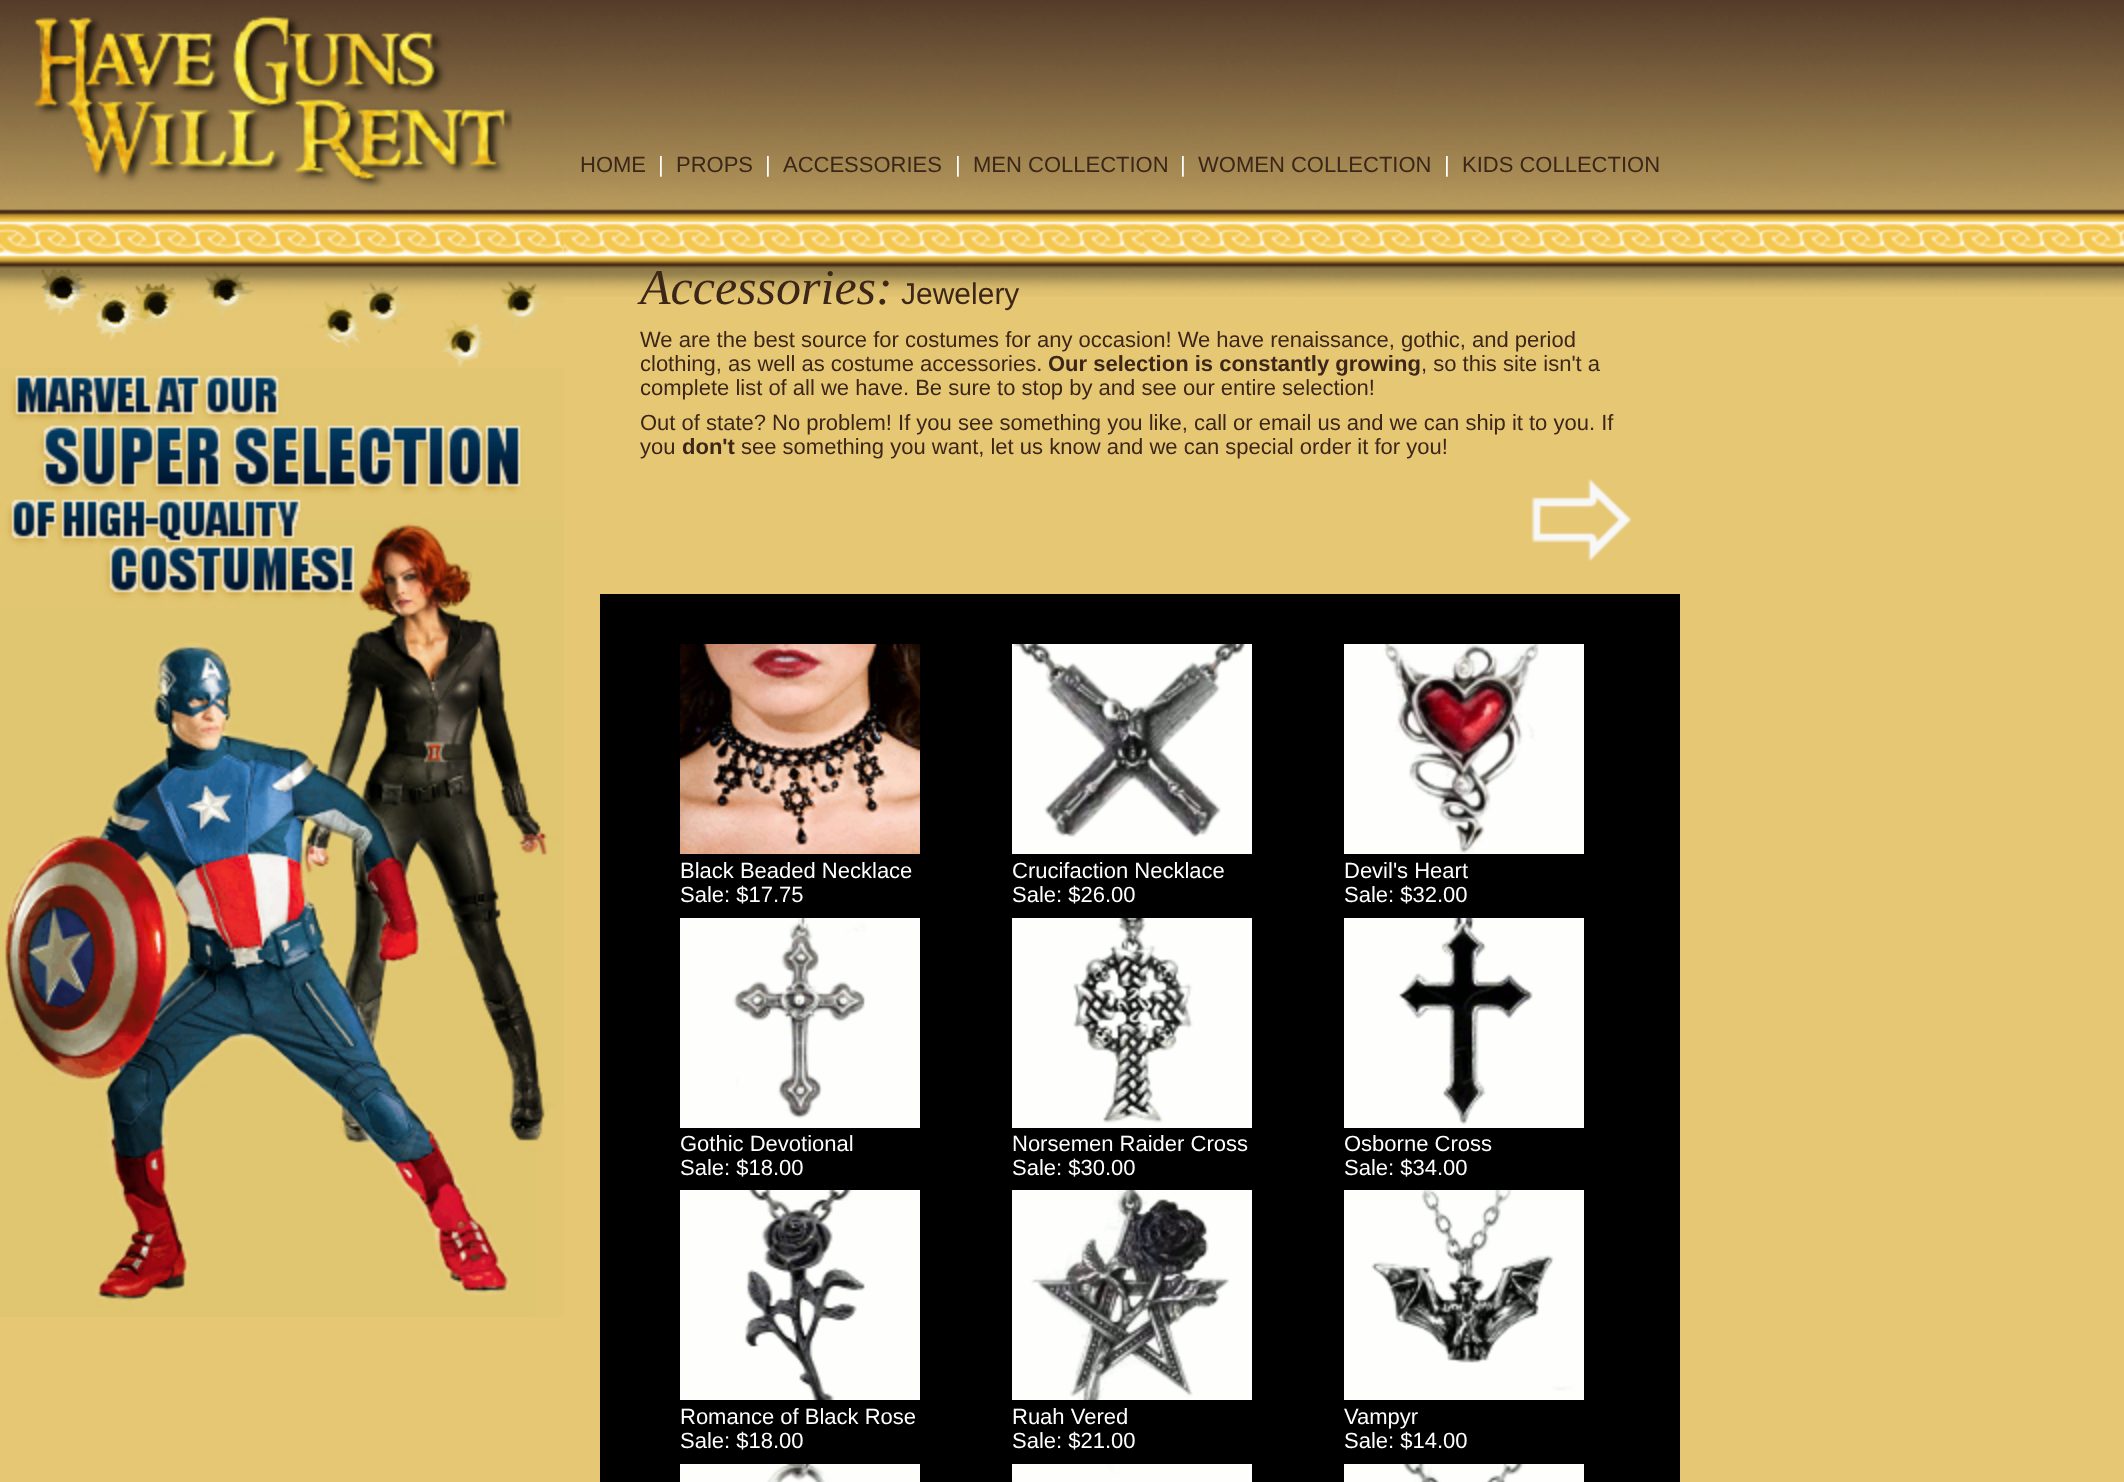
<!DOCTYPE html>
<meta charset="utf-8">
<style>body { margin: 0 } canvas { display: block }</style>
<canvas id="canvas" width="2124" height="1482"></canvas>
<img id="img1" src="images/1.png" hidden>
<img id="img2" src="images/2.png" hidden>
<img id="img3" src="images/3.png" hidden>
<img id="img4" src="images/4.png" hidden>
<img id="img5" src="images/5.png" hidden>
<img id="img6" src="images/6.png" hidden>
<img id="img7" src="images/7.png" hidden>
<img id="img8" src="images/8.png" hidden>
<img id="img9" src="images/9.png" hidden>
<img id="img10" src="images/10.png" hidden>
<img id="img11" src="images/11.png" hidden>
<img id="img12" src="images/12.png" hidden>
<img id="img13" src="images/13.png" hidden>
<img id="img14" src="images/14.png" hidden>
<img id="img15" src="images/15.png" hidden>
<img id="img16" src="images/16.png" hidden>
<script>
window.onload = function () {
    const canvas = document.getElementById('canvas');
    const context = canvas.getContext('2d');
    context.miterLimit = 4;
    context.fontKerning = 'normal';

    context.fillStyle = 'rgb(230, 199, 116)';
    context.fillRect(0, 0, 2124, 1482);
    context.drawImage(document.getElementById('img1'), 0, 0, 2124, 297);
    context.drawImage(document.getElementById('img2'), 0, 15, 564, 353);
    context.drawImage(document.getElementById('img3'), 0, 368, 564, 949);
    context.drawImage(document.getElementById('img4'), 1531, 479, 101, 82);
    context.fillStyle = 'rgb(0, 0, 0)';
    context.fillRect(600, 594, 1080, 888);
    context.drawImage(document.getElementById('img5'), 680, 644, 240, 210);
    context.drawImage(document.getElementById('img6'), 680, 918, 240, 210);
    context.drawImage(document.getElementById('img7'), 680, 1190, 240, 210);
    context.drawImage(document.getElementById('img8'), 680, 1464, 240, 18);
    context.drawImage(document.getElementById('img9'), 1012, 644, 240, 210);
    context.drawImage(document.getElementById('img10'), 1012, 918, 240, 210);
    context.drawImage(document.getElementById('img11'), 1012, 1190, 240, 210);
    context.drawImage(document.getElementById('img12'), 1012, 1464, 240, 18);
    context.drawImage(document.getElementById('img13'), 1344, 644, 240, 210);
    context.drawImage(document.getElementById('img14'), 1344, 918, 240, 210);
    context.drawImage(document.getElementById('img15'), 1344, 1190, 240, 210);
    context.drawImage(document.getElementById('img16'), 1344, 1464, 240, 18);
    context.font = '22px Liberation Sans';
    context.fillStyle = 'rgb(59, 38, 25)';
    context.fillText('HOME', 580, 172);
    context.fillStyle = 'rgb(255, 255, 255)';
    context.fillText('|', 658, 172);
    context.fillStyle = 'rgb(59, 38, 25)';
    context.fillText('PROPS', 676, 172);
    context.fillStyle = 'rgb(255, 255, 255)';
    context.fillText('|', 765, 172);
    context.fillStyle = 'rgb(59, 38, 25)';
    context.fillText('ACCESSORIES', 783, 172);
    context.fillStyle = 'rgb(255, 255, 255)';
    context.fillText('|', 955, 172);
    context.fillStyle = 'rgb(59, 38, 25)';
    context.fillText('MEN COLLECTION', 973, 172);
    context.fillStyle = 'rgb(255, 255, 255)';
    context.fillText('|', 1180, 172);
    context.fillStyle = 'rgb(59, 38, 25)';
    context.fillText('WOMEN COLLECTION', 1198, 172);
    context.fillStyle = 'rgb(255, 255, 255)';
    context.fillText('|', 1444, 172);
    context.fillStyle = 'rgb(59, 38, 25)';
    context.fillText('KIDS COLLECTION', 1462, 172);
    context.font = 'italic 50px Liberation Serif';
    context.fillText('Accessories:', 640, 304);
    context.font = '30px Liberation Sans';
    context.fillText('Jewelery', 901, 304);
    context.font = '22px Liberation Sans';
    context.fillText('We are the best source for costumes for any occasion! We have renaissance, gothic, and period', 640, 347);
    context.fillText('clothing, as well as costume accessories.', 640, 371);
    context.font = 'bold 22px Liberation Sans';
    context.fillText('Our selection is constantly growing', 1048, 371);
    context.font = '22px Liberation Sans';
    context.fillText(', so this site isn\'t a', 1421, 371);
    context.fillText('complete list of all we have. Be sure to stop by and see our entire selection!', 640, 395);
    context.fillText('Out of state? No problem! If you see something you like, call or email us and we can ship it to you. If', 640, 430);
    context.fillText('you', 640, 454);
    context.font = 'bold 22px Liberation Sans';
    context.fillText('don\'t', 682, 454);
    context.font = '22px Liberation Sans';
    context.fillText('see something you want, let us know and we can special order it for you!', 741, 454);
    context.fillStyle = 'rgb(255, 255, 255)';
    context.fillText('Black Beaded Necklace', 680, 878);
    context.fillText('Sale: $17.75', 680, 902);
    context.fillText('Gothic Devotional', 680, 1151);
    context.fillText('Sale: $18.00', 680, 1175);
    context.fillText('Romance of Black Rose', 680, 1424);
    context.fillText('Sale: $18.00', 680, 1448);
    context.fillText('Crucifaction Necklace', 1012, 878);
    context.fillText('Sale: $26.00', 1012, 902);
    context.fillText('Norsemen Raider Cross', 1012, 1151);
    context.fillText('Sale: $30.00', 1012, 1175);
    context.fillText('Ruah Vered', 1012, 1424);
    context.fillText('Sale: $21.00', 1012, 1448);
    context.fillText('Devil\'s Heart', 1344, 878);
    context.fillText('Sale: $32.00', 1344, 902);
    context.fillText('Osborne Cross', 1344, 1151);
    context.fillText('Sale: $34.00', 1344, 1175);
    context.fillText('Vampyr', 1344, 1424);
    context.fillText('Sale: $14.00', 1344, 1448);
};
</script>
